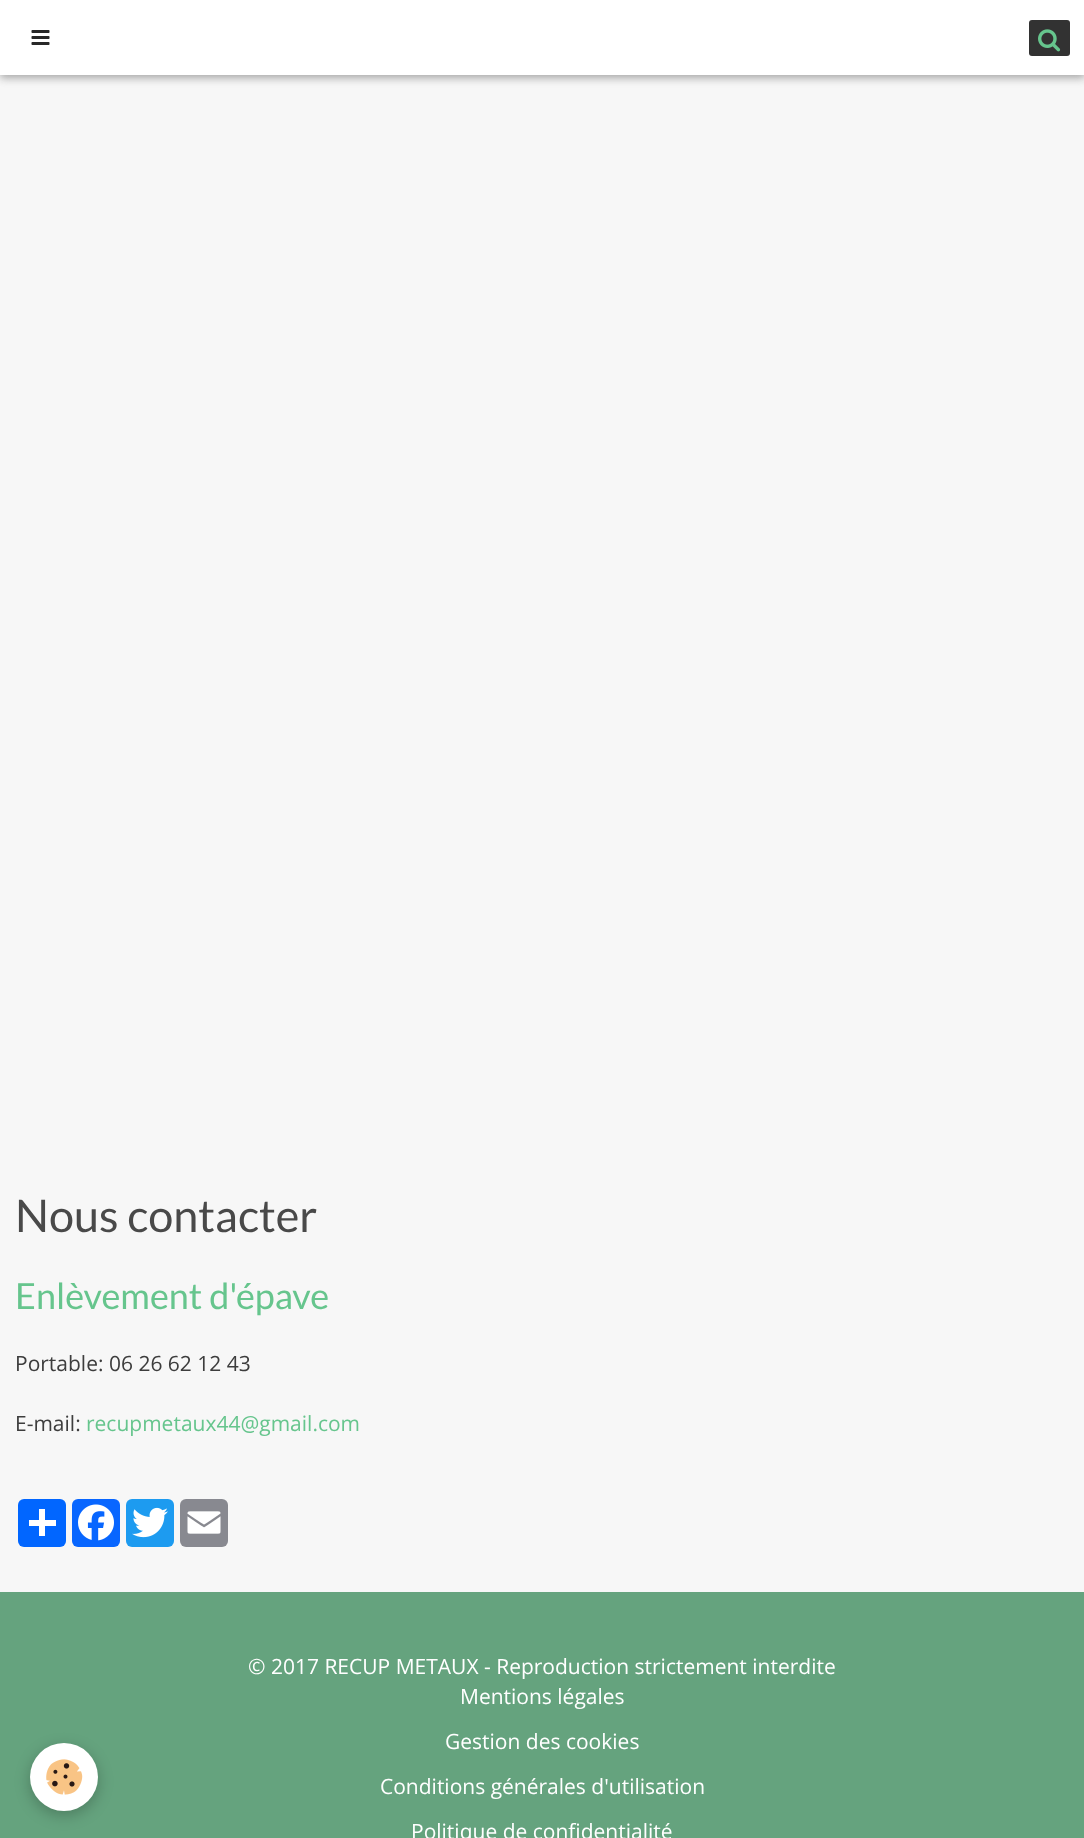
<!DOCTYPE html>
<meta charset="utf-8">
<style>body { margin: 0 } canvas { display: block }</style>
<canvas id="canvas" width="1084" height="1838"></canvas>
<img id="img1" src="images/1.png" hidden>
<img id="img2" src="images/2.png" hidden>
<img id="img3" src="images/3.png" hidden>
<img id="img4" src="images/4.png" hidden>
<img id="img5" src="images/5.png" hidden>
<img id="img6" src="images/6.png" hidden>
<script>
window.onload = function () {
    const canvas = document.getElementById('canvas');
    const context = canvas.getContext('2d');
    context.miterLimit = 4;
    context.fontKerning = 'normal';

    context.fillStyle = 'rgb(247, 247, 247)';
    context.fillRect(0, 0, 1084, 1838);
    context.fillStyle = 'rgb(165, 165, 165)';
    context.filter = 'blur(4px)';
    context.beginPath();
    context.rect(0, 3, 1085, 75);
    context.fill();
    context.filter = 'none';
    context.fillStyle = 'rgb(255, 255, 255)';
    context.fillRect(0, 0, 1084, 75);
    context.drawImage(document.getElementById('img1'), 31, 30, 19, 15);
    context.fillStyle = 'rgb(50, 50, 50)';
    context.beginPath();
    context.roundRect(1029, 20, 41, 36, 3);
    context.fill();
    context.drawImage(document.getElementById('img2'), 1038, 29, 23, 23);
    context.fillStyle = 'rgb(1, 102, 255)';
    context.beginPath();
    context.roundRect(18, 1499, 48, 48, 6);
    context.fill();
    context.fillStyle = 'rgb(255, 255, 255)';
    context.fillRect(39, 1509, 6, 27);
    context.fillRect(29, 1520, 27, 6);
    context.fillStyle = 'rgb(8, 102, 255)';
    context.beginPath();
    context.roundRect(72, 1499, 48, 48, 6);
    context.fill();
    context.drawImage(document.getElementById('img3'), 78, 1504, 36, 37);
    context.fillStyle = 'rgb(29, 155, 240)';
    context.beginPath();
    context.roundRect(126, 1499, 48, 48, 6);
    context.fill();
    context.drawImage(document.getElementById('img4'), 132, 1507, 36, 31);
    context.fillStyle = 'rgb(136, 137, 144)';
    context.beginPath();
    context.roundRect(180, 1499, 48, 48, 6);
    context.fill();
    context.drawImage(document.getElementById('img5'), 187, 1511, 34, 23);
    context.fillStyle = 'rgb(101, 163, 126)';
    context.fillRect(0, 1592, 1084, 246);
    context.fillStyle = 'rgba(0, 0, 0, 0.24)';
    context.filter = 'blur(7.5px)';
    context.beginPath();
    context.roundRect(30, 1748, 68, 67, 33.5);
    context.fill();
    context.filter = 'none';
    context.fillStyle = 'rgb(255, 255, 255)';
    context.beginPath();
    context.arc(64, 1777, 34, 0, 2 * Math.PI);
    context.fill();
    context.drawImage(document.getElementById('img6'), 46, 1759, 37, 36);
    context.font = '45px Lato';
    context.fillStyle = 'rgb(73, 73, 73)';
    context.fillText('Nous contacter', 15, 1232);
    context.font = '36px Lato';
    context.fillStyle = 'rgb(102, 197, 141)';
    context.fillText('Enlèvement d\'épave', 15, 1309);
    context.font = '21px Open Sans';
    context.fillStyle = 'rgb(61, 61, 61)';
    context.fillText('Portable: 06 26 62 12 43', 15, 1371);
    context.fillText('E-mail:', 15, 1431);
    context.fillStyle = 'rgb(102, 197, 141)';
    context.fillText('recupmetaux44@gmail.com', 86, 1431);
    context.fillStyle = 'rgb(255, 255, 255)';
    context.fillText('© 2017 RECUP METAUX - Reproduction strictement interdite', 248, 1674);
    context.fillText('Mentions légales', 460, 1704);
    context.fillText('Gestion des cookies', 445, 1749);
    context.fillText('Conditions générales d\'utilisation', 380, 1794);
    context.fillText('Politique de confidentialité', 411, 1839);
};
</script>
